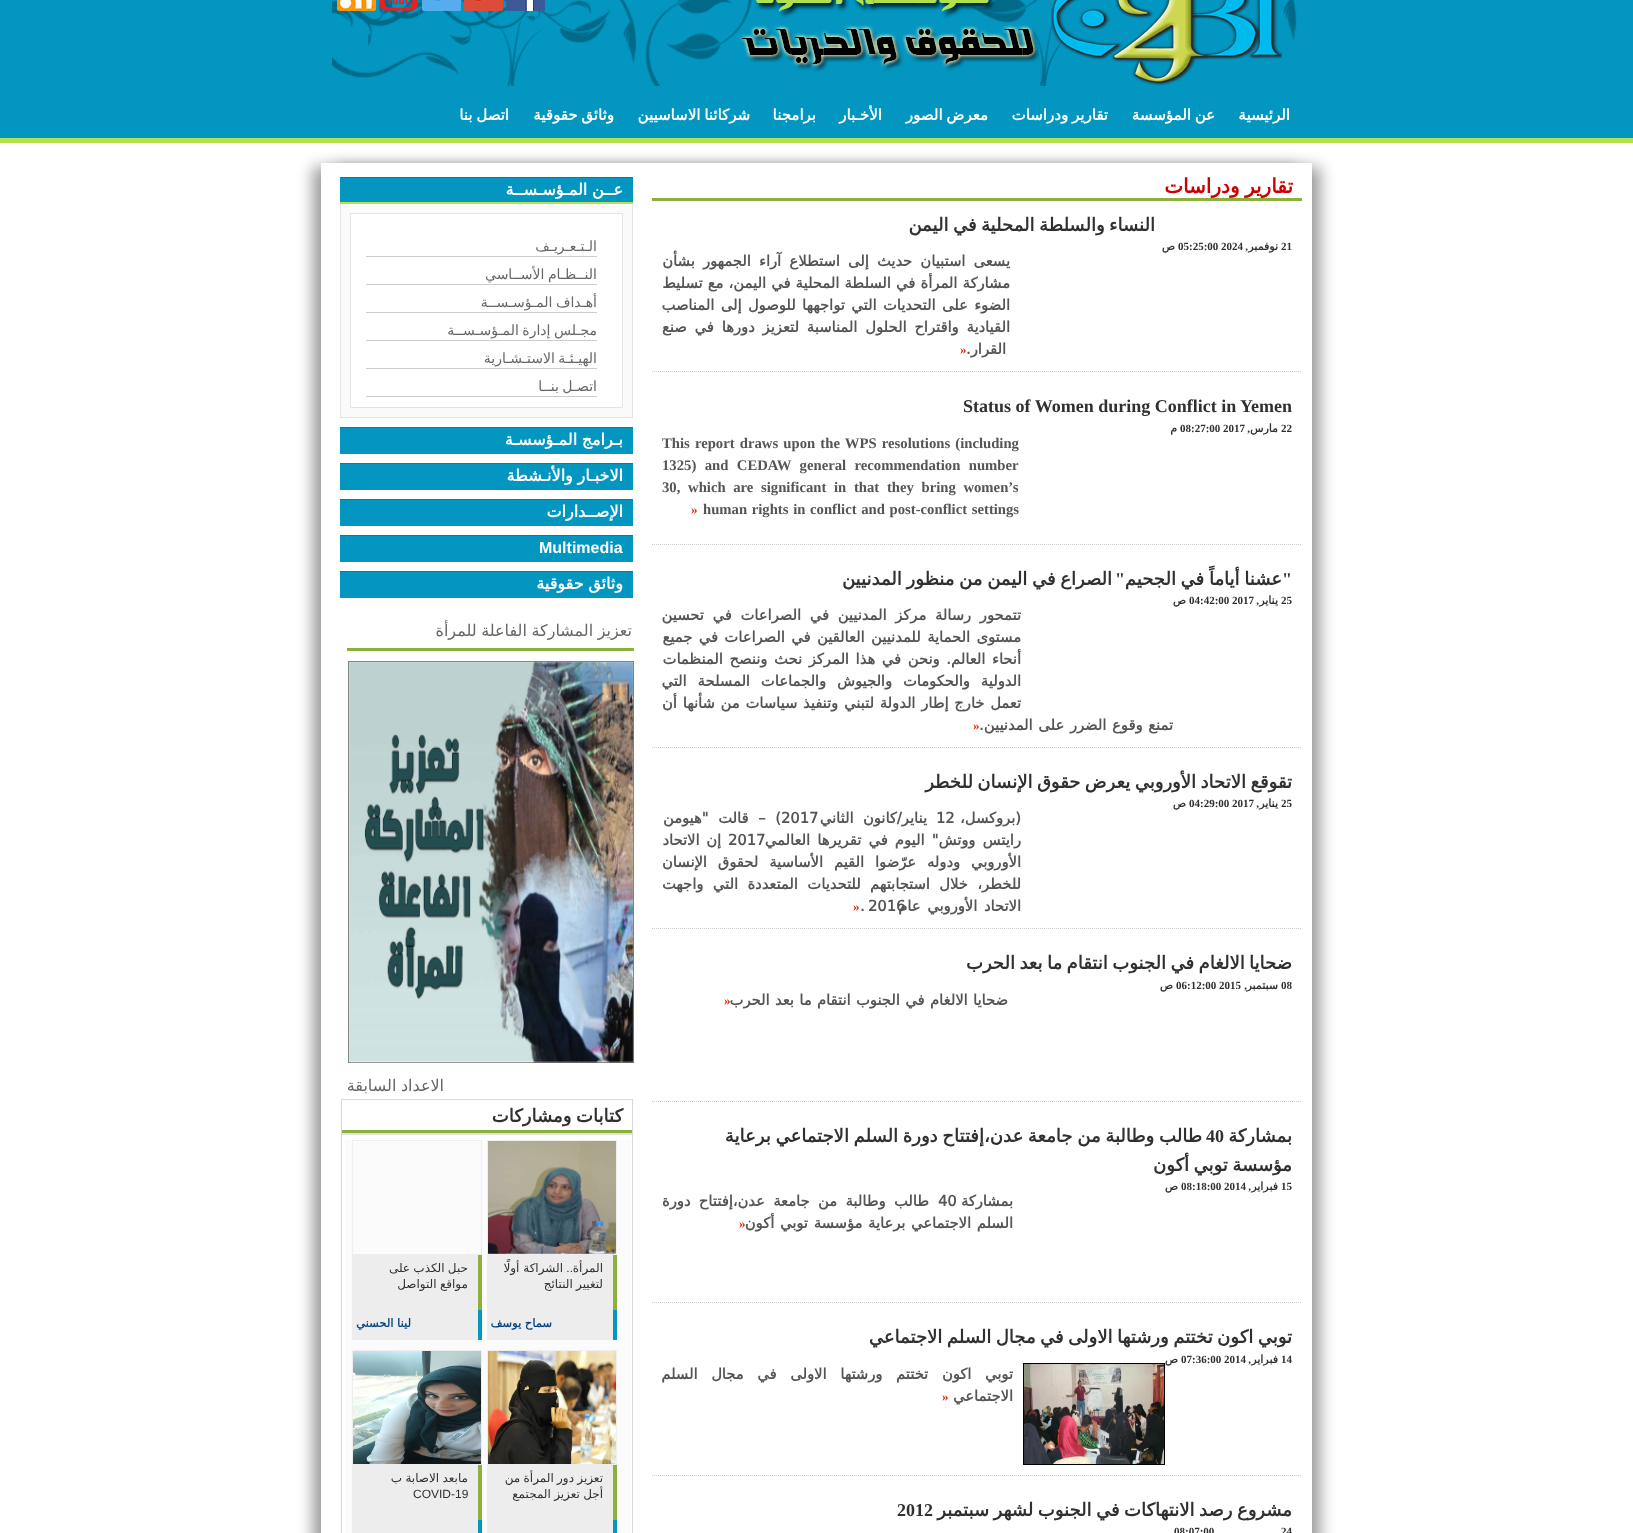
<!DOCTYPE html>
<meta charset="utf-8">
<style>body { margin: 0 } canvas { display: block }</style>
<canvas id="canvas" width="1633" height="1533"></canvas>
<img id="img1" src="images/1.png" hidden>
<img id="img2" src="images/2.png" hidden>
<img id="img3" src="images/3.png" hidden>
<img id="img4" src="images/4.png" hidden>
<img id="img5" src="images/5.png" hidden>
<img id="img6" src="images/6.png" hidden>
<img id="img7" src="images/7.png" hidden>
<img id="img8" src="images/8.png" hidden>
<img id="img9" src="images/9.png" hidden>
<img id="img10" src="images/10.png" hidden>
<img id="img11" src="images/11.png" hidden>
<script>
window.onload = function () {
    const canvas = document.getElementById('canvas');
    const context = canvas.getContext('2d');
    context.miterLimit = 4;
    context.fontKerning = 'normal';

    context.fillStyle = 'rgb(2, 150, 193)';
    context.fillRect(0, 0, 1633, 1533);
    context.drawImage(document.getElementById('img1'), 332, 0, 965, 86);
    context.drawImage(document.getElementById('img2'), 506, 0, 39, 11);
    context.drawImage(document.getElementById('img3'), 464, 0, 39, 11);
    context.drawImage(document.getElementById('img4'), 422, 0, 39, 11);
    context.drawImage(document.getElementById('img5'), 379, 0, 39, 11);
    context.drawImage(document.getElementById('img6'), 337, 0, 39, 11);
    context.fillStyle = 'rgb(179, 225, 78)';
    context.fillRect(0, 138, 1633, 5);
    context.fillStyle = 'rgb(255, 255, 255)';
    context.fillRect(0, 143, 1633, 1390);
    context.save();
    context.beginPath();
    context.moveTo(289, 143);
    context.lineTo(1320, 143);
    context.lineTo(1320, 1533);
    context.lineTo(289, 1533);
    context.closePath();
    context.moveTo(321, 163);
    context.lineTo(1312, 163);
    context.lineTo(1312, 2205);
    context.lineTo(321, 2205);
    context.closePath();
    context.clip('evenodd');
    context.fillStyle = 'rgba(0, 0, 0, 0.4)';
    context.filter = 'blur(7.5px)';
    context.beginPath();
    context.rect(313, 167, 983, 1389);
    context.fill();
    context.filter = 'none';
    context.restore();
    context.save();
    context.beginPath();
    context.moveTo(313, 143);
    context.lineTo(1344, 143);
    context.lineTo(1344, 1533);
    context.lineTo(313, 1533);
    context.closePath();
    context.moveTo(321, 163);
    context.lineTo(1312, 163);
    context.lineTo(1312, 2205);
    context.lineTo(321, 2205);
    context.closePath();
    context.clip('evenodd');
    context.fillStyle = 'rgba(0, 0, 0, 0.4)';
    context.filter = 'blur(7.5px)';
    context.beginPath();
    context.rect(337, 167, 983, 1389);
    context.fill();
    context.filter = 'none';
    context.restore();
    context.fillStyle = 'rgb(141, 176, 61)';
    context.fillRect(652, 198, 650, 3);
    context.beginPath();
    context.moveTo(652, 371.5);
    context.lineTo(1302, 371.5);
    context.strokeStyle = 'rgb(204, 204, 204)';
    context.setLineDash([1, 1]);
    context.stroke();
    context.beginPath();
    context.moveTo(652, 544.5);
    context.lineTo(1302, 544.5);
    context.stroke();
    context.beginPath();
    context.moveTo(652, 747.5);
    context.lineTo(1302, 747.5);
    context.stroke();
    context.beginPath();
    context.moveTo(652, 928.5);
    context.lineTo(1302, 928.5);
    context.stroke();
    context.beginPath();
    context.moveTo(652, 1101.5);
    context.lineTo(1302, 1101.5);
    context.stroke();
    context.beginPath();
    context.moveTo(652, 1302.5);
    context.lineTo(1302, 1302.5);
    context.stroke();
    context.beginPath();
    context.moveTo(652, 1475.5);
    context.lineTo(1302, 1475.5);
    context.stroke();
    context.strokeStyle = 'rgb(0, 0, 0)';
    context.setLineDash([]);
    context.strokeRect(1023.5, 1363.5, 141, 101);
    context.drawImage(document.getElementById('img7'), 1024, 1364, 140, 100);
    context.fillStyle = 'rgb(179, 225, 78)';
    context.fillRect(340, 202, 293, 2);
    context.fillStyle = 'rgb(51, 102, 153)';
    context.fillRect(340, 177, 293, 1);
    context.fillStyle = 'rgb(2, 150, 193)';
    context.fillRect(340, 178, 293, 24);
    context.fillStyle = 'rgb(250, 250, 250)';
    context.fillRect(341, 204, 291, 213);
    context.fillStyle = 'rgb(228, 228, 228)';
    context.fillRect(632, 204, 1, 214);
    context.fillRect(340, 417, 293, 1);
    context.fillRect(340, 204, 1, 214);
    context.fillStyle = 'rgb(255, 255, 255)';
    context.beginPath();
    context.rect(350.5, 213.5, 272, 194);
    context.fill();
    context.strokeStyle = 'rgb(228, 228, 228)';
    context.stroke();
    context.fillStyle = 'rgb(204, 204, 204)';
    context.fillRect(366, 256, 231, 1);
    context.fillRect(366, 284, 231, 1);
    context.fillRect(366, 312, 231, 1);
    context.fillRect(366, 340, 231, 1);
    context.fillRect(366, 368, 231, 1);
    context.fillRect(366, 396, 231, 1);
    context.fillStyle = 'rgb(2, 150, 193)';
    context.fillRect(340, 428, 293, 26);
    context.fillStyle = 'rgb(51, 102, 153)';
    context.fillRect(340, 427, 293, 1);
    context.fillStyle = 'rgb(2, 150, 193)';
    context.fillRect(340, 464, 293, 26);
    context.fillStyle = 'rgb(51, 102, 153)';
    context.fillRect(340, 463, 293, 1);
    context.fillStyle = 'rgb(2, 150, 193)';
    context.fillRect(340, 500, 293, 26);
    context.fillStyle = 'rgb(51, 102, 153)';
    context.fillRect(340, 499, 293, 1);
    context.fillStyle = 'rgb(2, 150, 193)';
    context.fillRect(340, 536, 293, 26);
    context.fillStyle = 'rgb(51, 102, 153)';
    context.fillRect(340, 535, 293, 1);
    context.fillStyle = 'rgb(2, 150, 193)';
    context.fillRect(340, 572, 293, 26);
    context.fillStyle = 'rgb(51, 102, 153)';
    context.fillRect(340, 571, 293, 1);
    context.fillStyle = 'rgb(141, 176, 61)';
    context.fillRect(347, 648, 287, 3);
    context.strokeStyle = 'rgb(128, 128, 128)';
    context.strokeRect(348.5, 661.5, 285, 401);
    context.drawImage(document.getElementById('img8'), 348, 661, 286, 402);
    context.strokeStyle = 'rgb(216, 216, 216)';
    context.strokeRect(341.5, 1099.5, 291, 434);
    context.fillRect(342, 1130, 290, 3);
    context.fillStyle = 'rgb(226, 225, 225)';
    context.fillRect(342, 1133, 290, 2);
    context.fillStyle = 'rgb(251, 251, 251)';
    context.fillRect(345, 1140, 286, 393);
    context.strokeStyle = 'rgb(238, 238, 238)';
    context.strokeRect(487.5, 1140.5, 129, 114);
    context.drawImage(document.getElementById('img9'), 488, 1141, 128, 113);
    context.fillStyle = 'rgb(237, 237, 237)';
    context.fillRect(487, 1255, 126, 85);
    context.fillStyle = 'rgb(141, 176, 61)';
    context.fillRect(613, 1255, 4, 55);
    context.fillStyle = 'rgb(2, 150, 193)';
    context.fillRect(613, 1310, 4, 30);
    context.strokeRect(352.5, 1140.5, 129, 114);
    context.fillStyle = 'rgb(237, 237, 237)';
    context.fillRect(352, 1255, 126, 85);
    context.fillStyle = 'rgb(141, 176, 61)';
    context.fillRect(478, 1255, 4, 55);
    context.fillStyle = 'rgb(2, 150, 193)';
    context.fillRect(478, 1310, 4, 30);
    context.strokeRect(487.5, 1350.5, 129, 114);
    context.drawImage(document.getElementById('img10'), 488, 1351, 128, 113);
    context.fillStyle = 'rgb(237, 237, 237)';
    context.fillRect(487, 1465, 126, 68);
    context.fillStyle = 'rgb(141, 176, 61)';
    context.fillRect(613, 1465, 4, 55);
    context.fillStyle = 'rgb(2, 150, 193)';
    context.fillRect(613, 1520, 4, 13);
    context.strokeRect(352.5, 1350.5, 129, 114);
    context.drawImage(document.getElementById('img11'), 353, 1351, 128, 113);
    context.fillStyle = 'rgb(237, 237, 237)';
    context.fillRect(352, 1465, 126, 68);
    context.fillStyle = 'rgb(141, 176, 61)';
    context.fillRect(478, 1465, 4, 55);
    context.fillStyle = 'rgb(2, 150, 193)';
    context.fillRect(478, 1520, 4, 13);
    context.direction = 'rtl';
    context.font = 'bold 15px DejaVu Sans';
    context.fillStyle = 'rgb(255, 255, 255)';
    context.fillText('الرئيسية', 1290, 120);
    context.wordSpacing = '-1px';
    context.fillText('عن المؤسسة', 1215, 120);
    context.fillText('تقارير ودراسات', 1108, 120);
    context.fillText('معرض الصور', 988, 120);
    context.wordSpacing = '0px';
    context.fillText('الأخـبار', 882, 120);
    context.fillText('برامجنا', 816, 120);
    context.wordSpacing = '-1px';
    context.fillText('شركائنا الاساسيين', 750, 120);
    context.fillText('وثائق حقوقية', 614, 120);
    context.fillText('اتصل بنا', 509, 120);
    context.font = 'bold 20px DejaVu Sans';
    context.fillStyle = 'rgb(204, 0, 0)';
    context.fillText('تقارير ودراسات', 1293, 193);
    context.wordSpacing = '-1.25px';
    context.font = 'bold 18px DejaVu Sans';
    context.fillStyle = 'rgb(48, 48, 48)';
    context.fillText('النساء والسلطة المحلية في اليمن', 1155, 231);
    context.wordSpacing = '0px';
    context.direction = 'ltr';
    context.font = 'bold 11px Liberation Serif';
    context.fillText('21', 1281, 250);
    context.direction = 'rtl';
    context.fillText(',', 1248, 250);
    context.font = 'bold 11px DejaVu Sans';
    context.fillText('نوفمبر', 1278, 250);
    context.direction = 'ltr';
    context.font = 'bold 11px Liberation Serif';
    context.fillText('05:25:00 2024', 1178, 250);
    context.direction = 'rtl';
    context.font = 'bold 11px DejaVu Sans';
    context.fillText('ص', 1175, 250);
    context.wordSpacing = '3.5px';
    context.font = 'bold 14.7px DejaVu Sans';
    context.fillStyle = 'rgb(85, 85, 85)';
    context.fillText('يسعى استبيان حديث إلى استطلاع آراء الجمهور بشأن', 1010, 266);
    context.wordSpacing = '0.5px';
    context.fillText('مشاركة المرأة في السلطة المحلية في اليمن، مع تسليط', 1010, 288);
    context.wordSpacing = '1.75px';
    context.fillText('الضوء على التحديات التي تواجهها للوصول إلى المناصب', 1010, 310);
    context.wordSpacing = '3.25px';
    context.fillText('القيادية واقتراح الحلول المناسبة لتعزيز دورها في صنع', 1010, 332);
    context.wordSpacing = '0px';
    context.fillText('القرار.', 1006, 354);
    context.direction = 'ltr';
    context.font = 'bold 13px Liberation Serif';
    context.fillStyle = 'rgb(228, 34, 8)';
    context.fillText('»', 960, 354);
    context.font = 'bold 18px Liberation Serif';
    context.fillStyle = 'rgb(48, 48, 48)';
    context.fillText('Status of Women during Conflict in Yemen', 963, 412);
    context.font = 'bold 11px Liberation Serif';
    context.fillText('22', 1281, 432);
    context.direction = 'rtl';
    context.font = 'bold 11px DejaVu Sans';
    context.fillText('مارس', 1278, 432);
    context.font = 'bold 11px Liberation Serif';
    context.fillText(',', 1250, 432);
    context.direction = 'ltr';
    context.fillText('08:27:00 2017', 1180, 432);
    context.direction = 'rtl';
    context.font = 'bold 11px DejaVu Sans';
    context.fillText('م', 1177, 432);
    context.wordSpacing = '1.5px';
    context.direction = 'ltr';
    context.font = 'bold 14.7px Liberation Serif';
    context.fillStyle = 'rgb(85, 85, 85)';
    context.fillText('This report draws upon the WPS resolutions (including', 662, 448);
    context.wordSpacing = '4.75px';
    context.fillText('1325) and CEDAW general recommendation number', 662, 470);
    context.wordSpacing = '4px';
    context.fillText('30, which are significant in that they bring women’s', 662, 492);
    context.wordSpacing = '1px';
    context.fillText('human rights in conflict and post-conflict settings', 703, 514);
    context.wordSpacing = '0px';
    context.font = 'bold 13px Liberation Serif';
    context.fillStyle = 'rgb(228, 34, 8)';
    context.fillText('»', 691, 514);
    context.direction = 'rtl';
    context.font = 'bold 18px Liberation Serif';
    context.fillStyle = 'rgb(48, 48, 48)';
    context.fillText('"', 1292, 585);
    context.wordSpacing = '-1px';
    context.font = 'bold 18px DejaVu Sans';
    context.fillText('عشنا أیاماً في الجحیم', 1282, 585);
    context.wordSpacing = '0px';
    context.font = 'bold 18px Liberation Serif';
    context.fillText('"', 1125, 585);
    context.wordSpacing = '-1px';
    context.font = 'bold 18px DejaVu Sans';
    context.fillText('الصراع في الیمن من منظور المدنیین', 1112, 585);
    context.wordSpacing = '0px';
    context.direction = 'ltr';
    context.font = 'bold 11px Liberation Serif';
    context.fillText('25', 1281, 604);
    context.direction = 'rtl';
    context.fillText(',', 1259, 604);
    context.font = 'bold 11px DejaVu Sans';
    context.fillText('يناير', 1278, 604);
    context.direction = 'ltr';
    context.font = 'bold 11px Liberation Serif';
    context.fillText('04:42:00 2017', 1189, 604);
    context.direction = 'rtl';
    context.font = 'bold 11px DejaVu Sans';
    context.fillText('ص', 1186, 604);
    context.wordSpacing = '4px';
    context.font = 'bold 14.7px DejaVu Sans';
    context.fillStyle = 'rgb(85, 85, 85)';
    context.fillText('تتمحور رسالة مركز المدنیین في الصراعات في تحسین', 1021, 620);
    context.wordSpacing = '1.75px';
    context.fillText('مستوى الحمایة للمدنیین العالقین في الصراعات في جمیع', 1021, 642);
    context.wordSpacing = '2px';
    context.fillText('أنحاء العالم. ونحن في هذا المركز نحث وننصح المنظمات', 1021, 664);
    context.wordSpacing = '6.25px';
    context.fillText('الدولیة والحكومات والجیوش والجماعات المسلحة التي', 1021, 686);
    context.wordSpacing = '1.1px';
    context.fillText('تعمل خارج إطار الدولة لتبني وتنفیذ سیاسات من شأنها أن', 1021, 708);
    context.wordSpacing = '1px';
    context.fillText('تمنع وقوع الضرر على المدنیین.', 1173, 730);
    context.wordSpacing = '0px';
    context.direction = 'ltr';
    context.font = 'bold 13px Liberation Serif';
    context.fillStyle = 'rgb(228, 34, 8)';
    context.fillText('»', 973, 730);
    context.wordSpacing = '-1.25px';
    context.direction = 'rtl';
    context.font = 'bold 18px DejaVu Sans';
    context.fillStyle = 'rgb(48, 48, 48)';
    context.fillText('تقوقع الاتحاد الأوروبي يعرض حقوق الإنسان للخطر', 1292, 788);
    context.wordSpacing = '0px';
    context.direction = 'ltr';
    context.font = 'bold 11px Liberation Serif';
    context.fillText('25', 1281, 807);
    context.direction = 'rtl';
    context.fillText(',', 1259, 807);
    context.font = 'bold 11px DejaVu Sans';
    context.fillText('يناير', 1278, 807);
    context.direction = 'ltr';
    context.font = 'bold 11px Liberation Serif';
    context.fillText('04:29:00 2017', 1189, 807);
    context.direction = 'rtl';
    context.font = 'bold 11px DejaVu Sans';
    context.fillText('ص', 1186, 807);
    context.font = 'bold 14.7px DejaVu Sans';
    context.fillStyle = 'rgb(85, 85, 85)';
    context.fillText('(بروكسل،', 1021, 823);
    context.direction = 'ltr';
    context.fillText('12', 936, 823);
    context.wordSpacing = '4.75px';
    context.direction = 'rtl';
    context.fillText('يناير/كانون الثاني', 927, 823);
    context.wordSpacing = '0px';
    context.direction = 'ltr';
    context.fillText('2017', 781, 823);
    context.wordSpacing = '5px';
    context.direction = 'rtl';
    context.fillText(') – قالت "هيومن', 781, 823);
    context.wordSpacing = '2.5px';
    context.fillText('رايتس ووتش" اليوم في تقريرها العالمي', 1021, 845);
    context.wordSpacing = '0px';
    context.direction = 'ltr';
    context.fillText('2017', 728, 845);
    context.wordSpacing = '2px';
    context.direction = 'rtl';
    context.fillText('إن الاتحاد', 721, 845);
    context.wordSpacing = '6.25px';
    context.fillText('الأوروبي ودوله عرّضوا القيم الأساسية لحقوق الإنسان', 1021, 867);
    context.wordSpacing = '4.75px';
    context.fillText('للخطر، خلال استجابتهم للتحديات المتعددة التي واجهت', 1021, 889);
    context.wordSpacing = '0px';
    context.direction = 'ltr';
    context.fillText('2016', 868, 911);
    context.wordSpacing = '2px';
    context.direction = 'rtl';
    context.fillText('الاتحاد الأوروبي عام', 1021, 911);
    context.wordSpacing = '0px';
    context.direction = 'ltr';
    context.fillText('.', 860, 911);
    context.font = 'bold 13px Liberation Serif';
    context.fillStyle = 'rgb(228, 34, 8)';
    context.fillText('»', 853, 911);
    context.wordSpacing = '-1.25px';
    context.direction = 'rtl';
    context.font = 'bold 18px DejaVu Sans';
    context.fillStyle = 'rgb(48, 48, 48)';
    context.fillText('ضحايا الالغام في الجنوب انتقام ما بعد الحرب', 1292, 969);
    context.wordSpacing = '0px';
    context.direction = 'ltr';
    context.font = 'bold 11px Liberation Serif';
    context.fillText('08', 1281, 989);
    context.direction = 'rtl';
    context.fillText(',', 1247, 989);
    context.font = 'bold 11px DejaVu Sans';
    context.fillText('سبتمبر', 1278, 989);
    context.direction = 'ltr';
    context.font = 'bold 11px Liberation Serif';
    context.fillText('06:12:00 2015', 1176, 989);
    context.direction = 'rtl';
    context.font = 'bold 11px DejaVu Sans';
    context.fillText('ص', 1173, 989);
    context.wordSpacing = '0.75px';
    context.font = 'bold 14.7px DejaVu Sans';
    context.fillStyle = 'rgb(85, 85, 85)';
    context.fillText('ضحايا الالغام في الجنوب انتقام ما بعد الحرب', 1008, 1005);
    context.wordSpacing = '0px';
    context.direction = 'ltr';
    context.font = 'bold 13px Liberation Serif';
    context.fillStyle = 'rgb(228, 34, 8)';
    context.fillText('»', 724, 1005);
    context.direction = 'rtl';
    context.font = 'bold 18px DejaVu Sans';
    context.fillStyle = 'rgb(48, 48, 48)';
    context.fillText('بمشاركة', 1292, 1142);
    context.wordSpacing = '-1px';
    context.fillText('طالب وطالبة من جامعة عدن،إفتتاح دورة السلم الاجتماعي برعاية', 1202, 1142);
    context.wordSpacing = '0px';
    context.direction = 'ltr';
    context.font = 'bold 18px Liberation Serif';
    context.fillText('40', 1206, 1142);
    context.wordSpacing = '-1.25px';
    context.direction = 'rtl';
    context.font = 'bold 18px DejaVu Sans';
    context.fillText('مؤسسة توبي أكون', 1292, 1171);
    context.wordSpacing = '0px';
    context.direction = 'ltr';
    context.font = 'bold 11px Liberation Serif';
    context.fillText('15', 1281, 1190);
    context.direction = 'rtl';
    context.fillText(',', 1251, 1190);
    context.font = 'bold 11px DejaVu Sans';
    context.fillText('فبراير', 1278, 1190);
    context.direction = 'ltr';
    context.font = 'bold 11px Liberation Serif';
    context.fillText('08:18:00 2014', 1181, 1190);
    context.direction = 'rtl';
    context.font = 'bold 11px DejaVu Sans';
    context.fillText('ص', 1178, 1190);
    context.font = 'bold 14.7px DejaVu Sans';
    context.fillStyle = 'rgb(85, 85, 85)';
    context.fillText('بمشاركة', 1013, 1206);
    context.direction = 'ltr';
    context.fillText('40', 938, 1206);
    context.wordSpacing = '3.75px';
    context.direction = 'rtl';
    context.fillText('طالب وطالبة من جامعة عدن،إفتتاح دورة', 929, 1206);
    context.wordSpacing = '1px';
    context.fillText('السلم الاجتماعي برعاية مؤسسة توبي أكون', 1013, 1228);
    context.wordSpacing = '0px';
    context.direction = 'ltr';
    context.font = 'bold 13px Liberation Serif';
    context.fillStyle = 'rgb(228, 34, 8)';
    context.fillText('»', 739, 1228);
    context.wordSpacing = '-1.25px';
    context.direction = 'rtl';
    context.font = 'bold 18px DejaVu Sans';
    context.fillStyle = 'rgb(48, 48, 48)';
    context.fillText('توبي اكون تختتم ورشتها الاولى في مجال السلم الاجتماعي', 1292, 1343);
    context.wordSpacing = '0px';
    context.direction = 'ltr';
    context.font = 'bold 11px Liberation Serif';
    context.fillText('14', 1281, 1363);
    context.direction = 'rtl';
    context.fillText(',', 1251, 1363);
    context.font = 'bold 11px DejaVu Sans';
    context.fillText('فبراير', 1278, 1363);
    context.direction = 'ltr';
    context.font = 'bold 11px Liberation Serif';
    context.fillText('07:36:00 2014', 1181, 1363);
    context.direction = 'rtl';
    context.font = 'bold 11px DejaVu Sans';
    context.fillText('ص', 1178, 1363);
    context.wordSpacing = '9px';
    context.font = 'bold 14.7px DejaVu Sans';
    context.fillStyle = 'rgb(85, 85, 85)';
    context.fillText('توبي اكون تختتم ورشتها الاولى في مجال السلم', 1013, 1379);
    context.wordSpacing = '0px';
    context.fillText('الاجتماعي', 1013, 1401);
    context.direction = 'ltr';
    context.font = 'bold 13px Liberation Serif';
    context.fillStyle = 'rgb(228, 34, 8)';
    context.fillText('»', 942, 1401);
    context.wordSpacing = '-1.25px';
    context.direction = 'rtl';
    context.font = 'bold 18px DejaVu Sans';
    context.fillStyle = 'rgb(48, 48, 48)';
    context.fillText('مشروع رصد الانتهاكات في الجنوب لشهر سبتمبر', 1292, 1516);
    context.wordSpacing = '0px';
    context.direction = 'ltr';
    context.font = 'bold 18px Liberation Serif';
    context.fillText('2012', 897, 1516);
    context.font = 'bold 11px Liberation Serif';
    context.fillText('24', 1281, 1535);
    context.fillText('08:07:00', 1174, 1535);
    context.wordSpacing = '-0.5px';
    context.direction = 'rtl';
    context.font = 'bold 16px DejaVu Sans';
    context.fillStyle = 'rgb(255, 255, 255)';
    context.fillText('عــن المـؤسـســة', 623, 195);
    context.wordSpacing = '0px';
    context.font = '14px DejaVu Sans';
    context.fillStyle = 'rgb(102, 102, 102)';
    context.fillText('الـتـعـريـف', 597, 251);
    context.wordSpacing = '-1px';
    context.fillText('النــظـام الأســاسي', 597, 279);
    context.fillText('أهـداف المـؤسـســة', 597, 307);
    context.fillText('مجـلس إدارة المـؤسـســة', 597, 335);
    context.fillText('الهيـئـة الاستـشـارية', 597, 363);
    context.fillText('اتصـل بنــا', 597, 391);
    context.wordSpacing = '-0.5px';
    context.font = 'bold 16px DejaVu Sans';
    context.fillStyle = 'rgb(255, 255, 255)';
    context.fillText('بـرامج المـؤسسـة', 623, 445);
    context.fillText('الاخبـار والأنـشطة', 623, 481);
    context.wordSpacing = '0px';
    context.fillText('الإصــدارات', 623, 517);
    context.direction = 'ltr';
    context.font = 'bold 16px Liberation Sans';
    context.fillText('Multimedia', 539, 553);
    context.wordSpacing = '-0.5px';
    context.direction = 'rtl';
    context.font = 'bold 16px DejaVu Sans';
    context.fillText('وثائق حقوقية', 623, 589);
    context.font = '16px DejaVu Sans';
    context.fillStyle = 'rgb(102, 102, 102)';
    context.fillText('تعزيز المشاركة الفاعلة للمرأة', 632, 636);
    context.fillText('الاعداد السابقة', 444, 1091);
    context.wordSpacing = '-1px';
    context.font = 'bold 18px DejaVu Sans';
    context.fillStyle = 'rgb(48, 48, 48)';
    context.fillText('كتابات ومشاركات', 623, 1122);
    context.wordSpacing = '0px';
    context.font = '12px DejaVu Sans';
    context.fillText('المرأة', 603, 1272);
    context.font = '12px Liberation Sans';
    context.fillText('..', 573, 1272);
    context.font = '12px DejaVu Sans';
    context.fillText('الشراكة أولًا', 563, 1272);
    context.wordSpacing = '-0.5px';
    context.fillText('لتغيير النتائج', 603, 1288);
    context.wordSpacing = '0px';
    context.font = 'bold 11.5px DejaVu Sans';
    context.fillStyle = 'rgb(5, 69, 131)';
    context.fillText('سماح يوسف', 552, 1327);
    context.wordSpacing = '-0.5px';
    context.font = '12px DejaVu Sans';
    context.fillStyle = 'rgb(48, 48, 48)';
    context.fillText('حبل الكذب على', 468, 1272);
    context.fillText('مواقع التواصل', 468, 1288);
    context.wordSpacing = '0px';
    context.font = 'bold 11.5px DejaVu Sans';
    context.fillStyle = 'rgb(5, 69, 131)';
    context.fillText('لينا الحسني', 411, 1327);
    context.wordSpacing = '-0.5px';
    context.font = '12px DejaVu Sans';
    context.fillStyle = 'rgb(48, 48, 48)';
    context.fillText('تعزيز دور المرأة من', 603, 1482);
    context.fillText('أجل تعزيز المجتمع', 603, 1498);
    context.fillText('مابعد الاصابة ب', 468, 1482);
    context.wordSpacing = '0px';
    context.direction = 'ltr';
    context.font = '12px Liberation Sans';
    context.fillText('COVID-19', 413, 1498);
};
</script>
